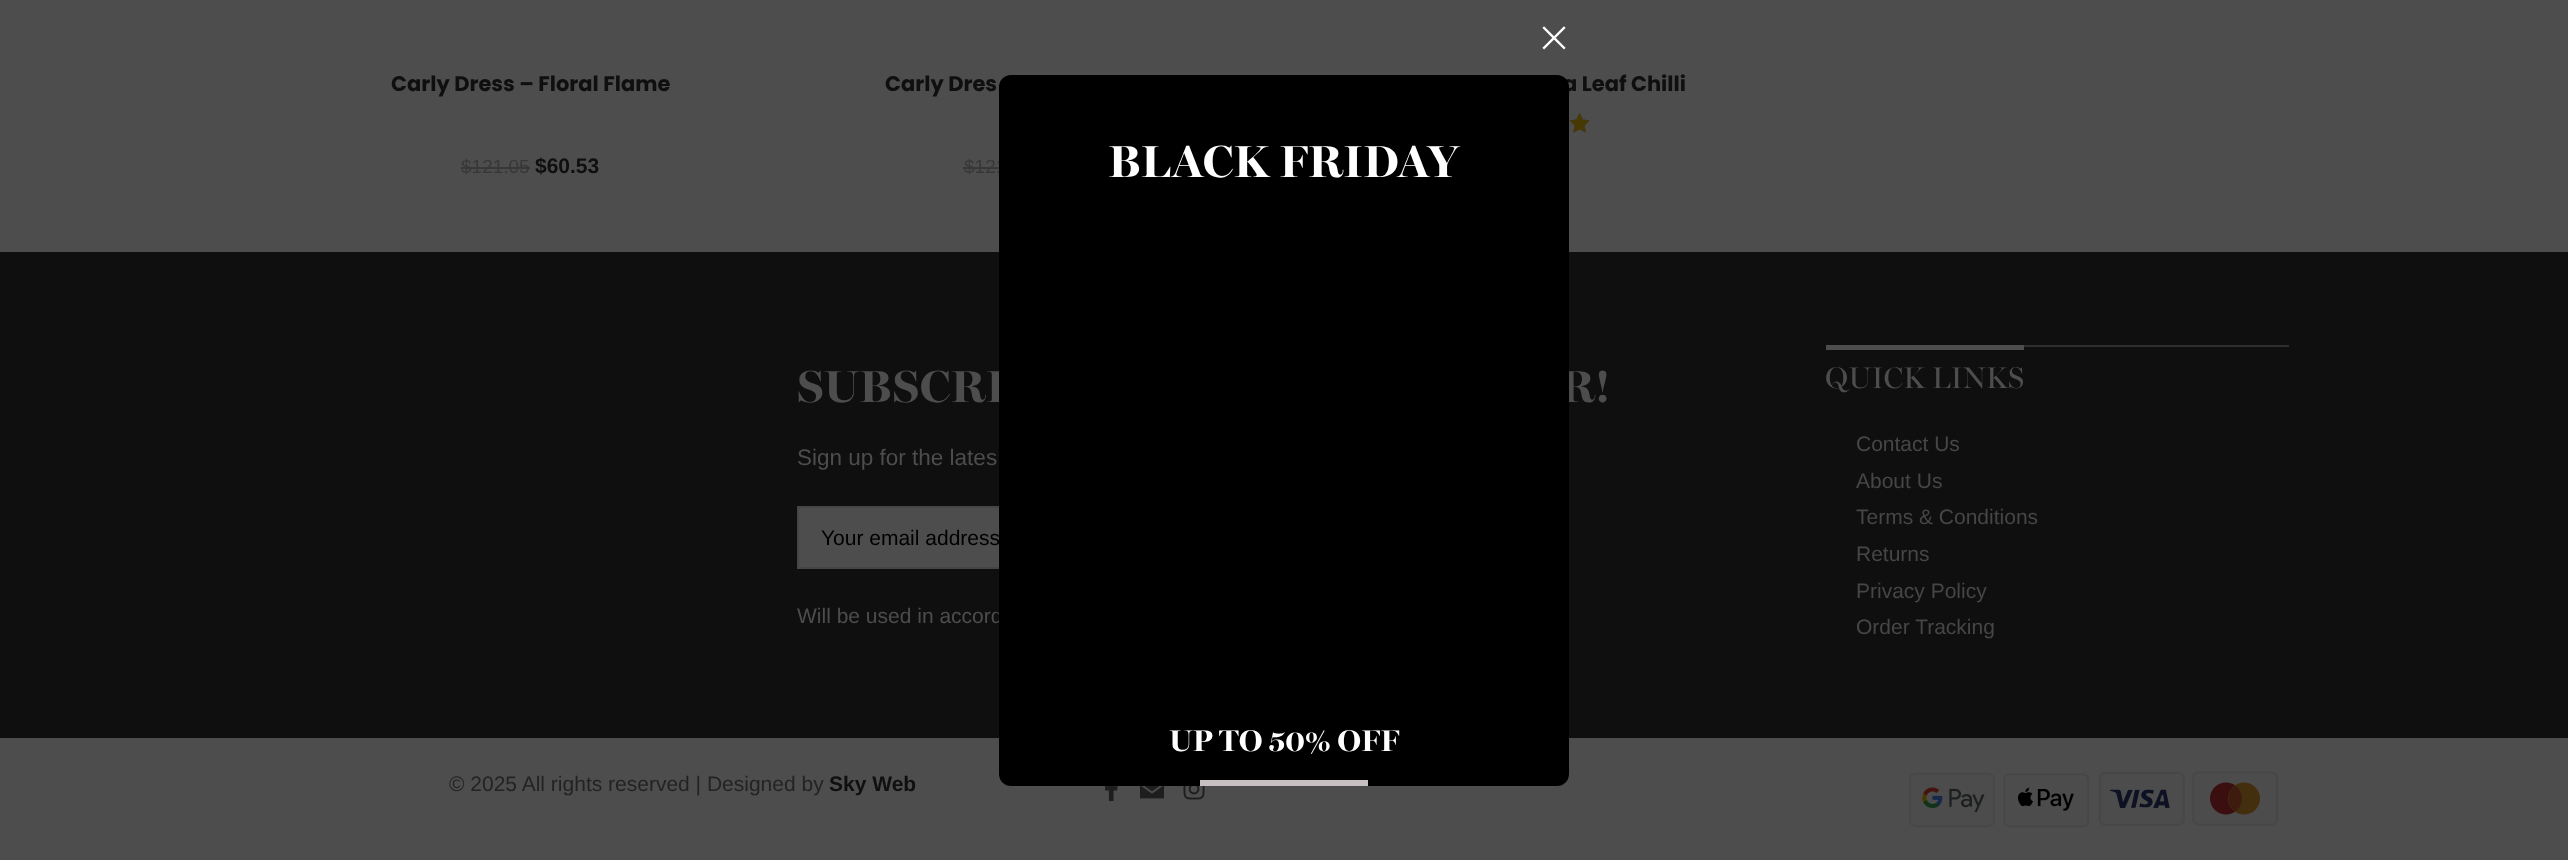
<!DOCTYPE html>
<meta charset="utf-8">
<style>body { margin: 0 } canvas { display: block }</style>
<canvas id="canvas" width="2568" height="860"></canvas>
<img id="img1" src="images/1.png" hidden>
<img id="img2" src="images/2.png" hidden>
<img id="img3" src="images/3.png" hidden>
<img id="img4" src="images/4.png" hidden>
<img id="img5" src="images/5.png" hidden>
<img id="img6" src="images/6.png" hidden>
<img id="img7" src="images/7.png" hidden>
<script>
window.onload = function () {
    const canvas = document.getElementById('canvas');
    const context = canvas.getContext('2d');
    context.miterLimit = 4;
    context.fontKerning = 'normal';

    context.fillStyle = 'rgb(77, 77, 77)';
    context.fillRect(0, 0, 2568, 860);
    context.fillStyle = 'rgb(56, 56, 56)';
    context.fillRect(461, 167, 69, 2);
    context.fillRect(963, 167, 36, 2);
    context.drawImage(document.getElementById('img1'), 1569, 113, 21, 20);
    context.drawImage(document.getElementById('img2'), 1569, 113, 21, 20);
    context.fillStyle = 'rgb(15, 15, 15)';
    context.fillRect(0, 252, 2568, 486);
    context.fillStyle = 'rgb(77, 77, 77)';
    context.fillRect(799, 508, 200, 59);
    context.strokeStyle = 'rgb(69, 69, 69)';
    context.lineWidth = 2;
    context.strokeRect(798, 507, 368, 61);
    context.fillStyle = 'rgb(46, 46, 46)';
    context.fillRect(2024, 345, 265, 2);
    context.fillStyle = 'rgb(77, 77, 77)';
    context.fillRect(1826, 345, 198, 5);
    context.drawImage(document.getElementById('img3'), 1105, 786, 13, 15);
    context.drawImage(document.getElementById('img4'), 1140, 786, 24, 13);
    context.drawImage(document.getElementById('img5'), 1183, 786, 22, 14);
    context.drawImage(document.getElementById('img6'), 1909, 771, 369, 57);
    context.drawImage(document.getElementById('img7'), 1542, 26, 24, 24);
    context.font = 'bold 21px Poppins';
    context.fillStyle = 'rgb(15, 15, 15)';
    context.fillText('Carly Dress – Floral Flame', 391, 91);
    context.font = '19px Liberation Sans';
    context.fillStyle = 'rgb(56, 56, 56)';
    context.fillText('$121.05', 461, 173);
    context.font = 'bold 21px Liberation Sans';
    context.fillStyle = 'rgb(15, 15, 15)';
    context.fillText('$60.53', 535, 173);
    context.font = 'bold 21px Poppins';
    context.fillText('Carly Dres', 885, 91);
    context.font = '19px Liberation Sans';
    context.fillStyle = 'rgb(56, 56, 56)';
    context.fillText('$121', 964, 173);
    context.font = 'bold 21px Poppins';
    context.fillStyle = 'rgb(15, 15, 15)';
    context.fillText('a Leaf Chilli', 1563, 91);
    context.font = 'bold 45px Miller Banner';
    context.fillStyle = 'rgb(77, 77, 77)';
    context.fillText('SUBSCRI', 797, 402);
    context.fillText('R!', 1560, 402);
    context.font = '22.5px Liberation Sans';
    context.fillText('Sign up for the lates', 797, 465);
    context.font = '21px Liberation Sans';
    context.fillStyle = 'rgb(0, 0, 0)';
    context.fillText('Your email address', 821, 545);
    context.fillStyle = 'rgb(77, 77, 77)';
    context.fillText('Will be used in accord', 797, 623);
    context.font = '30px Miller Banner';
    context.fillText('QUICK LINKS', 1825, 388);
    context.font = '21px Liberation Sans';
    context.fillStyle = 'rgb(70, 70, 70)';
    context.fillText('Contact Us', 1856, 451);
    context.fillText('About Us', 1856, 488);
    context.fillText('Terms & Conditions', 1856, 524);
    context.fillText('Returns', 1856, 561);
    context.fillText('Privacy Policy', 1856, 598);
    context.fillText('Order Tracking', 1856, 634);
    context.fillStyle = 'rgb(35, 35, 35)';
    context.fillText('© 2025 All rights reserved | Designed by', 449, 791);
    context.font = 'bold 21px Liberation Sans';
    context.fillStyle = 'rgb(15, 15, 15)';
    context.fillText('Sky Web', 829, 791);
    context.fillStyle = 'rgb(0, 0, 0)';
    context.beginPath();
    context.roundRect(999, 75, 570, 711, 12);
    context.fill();
    context.font = 'bold 45px Miller Banner';
    context.fillStyle = 'rgb(255, 255, 255)';
    context.fillText('BLACK FRIDAY', 1108, 177);
    context.font = 'bold 30px Miller Banner';
    context.fillText('UP TO 50% OFF', 1169, 751);
    context.fillStyle = 'rgb(198, 192, 192)';
    context.fillRect(1200, 780, 168, 6);
};
</script>
